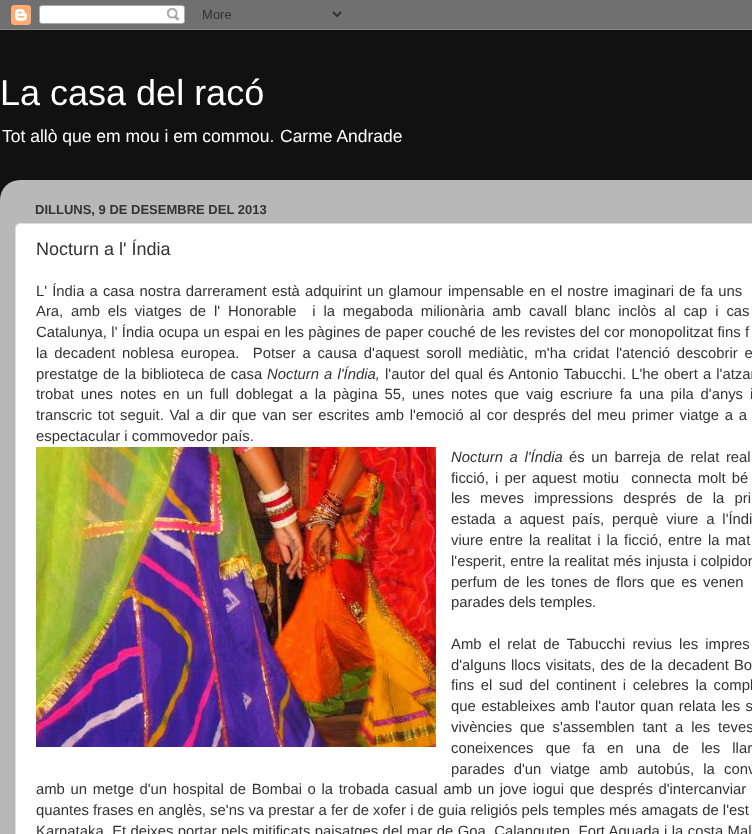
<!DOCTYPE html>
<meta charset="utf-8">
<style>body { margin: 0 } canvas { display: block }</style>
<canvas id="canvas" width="752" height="834"></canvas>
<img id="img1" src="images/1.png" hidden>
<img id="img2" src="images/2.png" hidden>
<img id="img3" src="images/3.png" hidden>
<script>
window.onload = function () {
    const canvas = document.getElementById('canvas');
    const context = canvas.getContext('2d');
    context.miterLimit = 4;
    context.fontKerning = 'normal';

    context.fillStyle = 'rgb(17, 17, 17)';
    context.fillRect(0, 0, 752, 834);
    context.drawImage(document.getElementById('img1'), 0, 0, 752, 30);
    context.drawImage(document.getElementById('img2'), 0, 180, 752, 654);
    context.fillStyle = 'rgb(255, 255, 255)';
    context.beginPath();
    context.roundRect(15.5, 223.5, 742, 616, 4.5);
    context.fill();
    context.strokeStyle = 'rgb(221, 221, 221)';
    context.stroke();
    context.drawImage(document.getElementById('img3'), 36, 447, 400, 300);
    context.font = '36px Liberation Sans';
    context.fillText('La casa del racó', 0, 105);
    context.font = '17.5px Liberation Sans';
    context.fillText('Tot allò que em mou i em commou.', 2, 142);
    context.fillText('Carme Andrade', 280, 142);
    context.font = 'bold 13px Liberation Sans';
    context.fillStyle = 'rgb(51, 51, 51)';
    context.fillText('DILLUNS, 9 DE DESEMBRE DEL 2013', 35, 214);
    context.font = '18px Liberation Sans';
    context.fillText('Nocturn a l\' Índia', 36, 255);
    context.wordSpacing = '1px';
    context.font = '14.85px Liberation Sans';
    context.fillText('L\' Índia a casa nostra darrerament està adquirint un glamour', 36, 296);
    context.fillText('impensable en el nostre imaginari de fa uns', 448, 296);
    context.wordSpacing = '3.75px';
    context.fillText('Ara, amb els viatges de l\' Honorable  i la megaboda milionària amb cavall blanc inclòs al cap i cas', 36, 316);
    context.wordSpacing = '0.25px';
    context.fillText('Catalunya, l\' Índia ocupa un espai en les pàgines de paper couché de les revistes del cor monopolitzat fins f', 36, 337);
    context.wordSpacing = '2.6px';
    context.fillText('la decadent noblesa europea.  Potser a causa d\'aquest soroll mediàtic, m\'ha cridat l\'atenció descobrir e', 36, 358);
    context.wordSpacing = '1px';
    context.fillText('prestatge de la biblioteca de casa', 36, 379);
    context.font = 'italic 14.85px Liberation Sans';
    context.fillText('Nocturn a l\'Índia,', 267, 379);
    context.font = '14.85px Liberation Sans';
    context.fillText('l\'autor del qual és Antonio Tabucchi. L\'he obert a l\'atzar', 385, 379);
    context.wordSpacing = '2.75px';
    context.fillText('trobat unes notes en un full doblegat a la pàgina 55, unes notes que vaig escriure fa una pila d\'anys i', 36, 399);
    context.wordSpacing = '1.6px';
    context.fillText('transcric tot seguit. Val a dir que van ser escrites amb l\'emoció al cor després del meu primer viatge a a', 36, 420);
    context.wordSpacing = '0px';
    context.fillText('espectacular i commovedor país.', 36, 441);
    context.wordSpacing = '2.5px';
    context.font = 'italic 14.85px Liberation Sans';
    context.fillText('Nocturn a l\'Índia', 451, 462);
    context.font = '14.85px Liberation Sans';
    context.fillText('és un barreja de relat real', 569, 462);
    context.wordSpacing = '2px';
    context.fillText('ficció, i per aquest motiu  connecta molt bé', 451, 483);
    context.wordSpacing = '6px';
    context.fillText('les meves impressions després de la pri', 451, 503);
    context.wordSpacing = '3.75px';
    context.fillText('estada a aquest país, perquè viure a l\'Índi', 451, 524);
    context.wordSpacing = '1.9px';
    context.fillText('viure entre la realitat i la ficció, entre la mat', 451, 545);
    context.wordSpacing = '0.25px';
    context.fillText('l\'esperit, entre la realitat més injusta i colpidor', 451, 566);
    context.wordSpacing = '2px';
    context.fillText('perfum de les tones de flors que es venen', 451, 587);
    context.wordSpacing = '0px';
    context.fillText('parades dels temples.', 451, 607);
    context.wordSpacing = '3px';
    context.fillText('Amb el relat de Tabucchi revius les impres', 451, 649);
    context.wordSpacing = '1px';
    context.fillText('d\'alguns llocs visitats, des de la decadent Bo', 451, 670);
    context.wordSpacing = '2.5px';
    context.fillText('fins el sud del continent i celebres la compl', 451, 690);
    context.wordSpacing = '1.25px';
    context.fillText('que estableixes amb l\'autor quan relata les s', 451, 711);
    context.wordSpacing = '3.75px';
    context.fillText('vivències que s\'assemblen tant a les teves', 451, 732);
    context.wordSpacing = '8px';
    context.fillText('coneixences que fa en una de les llar', 451, 753);
    context.wordSpacing = '5px';
    context.fillText('parades d\'un viatge amb autobús, la conv', 451, 774);
    context.wordSpacing = '1.5px';
    context.fillText('amb un metge d\'un hospital de Bombai o la trobada casual amb un jove iogui que després d\'intercanviar', 36, 794);
    context.wordSpacing = '0px';
    context.fillText('quantes frases en anglès, se\'ns va prestar a fer de xofer i de guia religiós pels temples més amagats de l\'est', 36, 815);
    context.wordSpacing = '0.25px';
    context.fillText('Karnataka. Et deixes portar pels mitificats paisatges del mar de Goa, Calanguten, Fort Aguada i la costa Mal', 36, 836);
};
</script>
